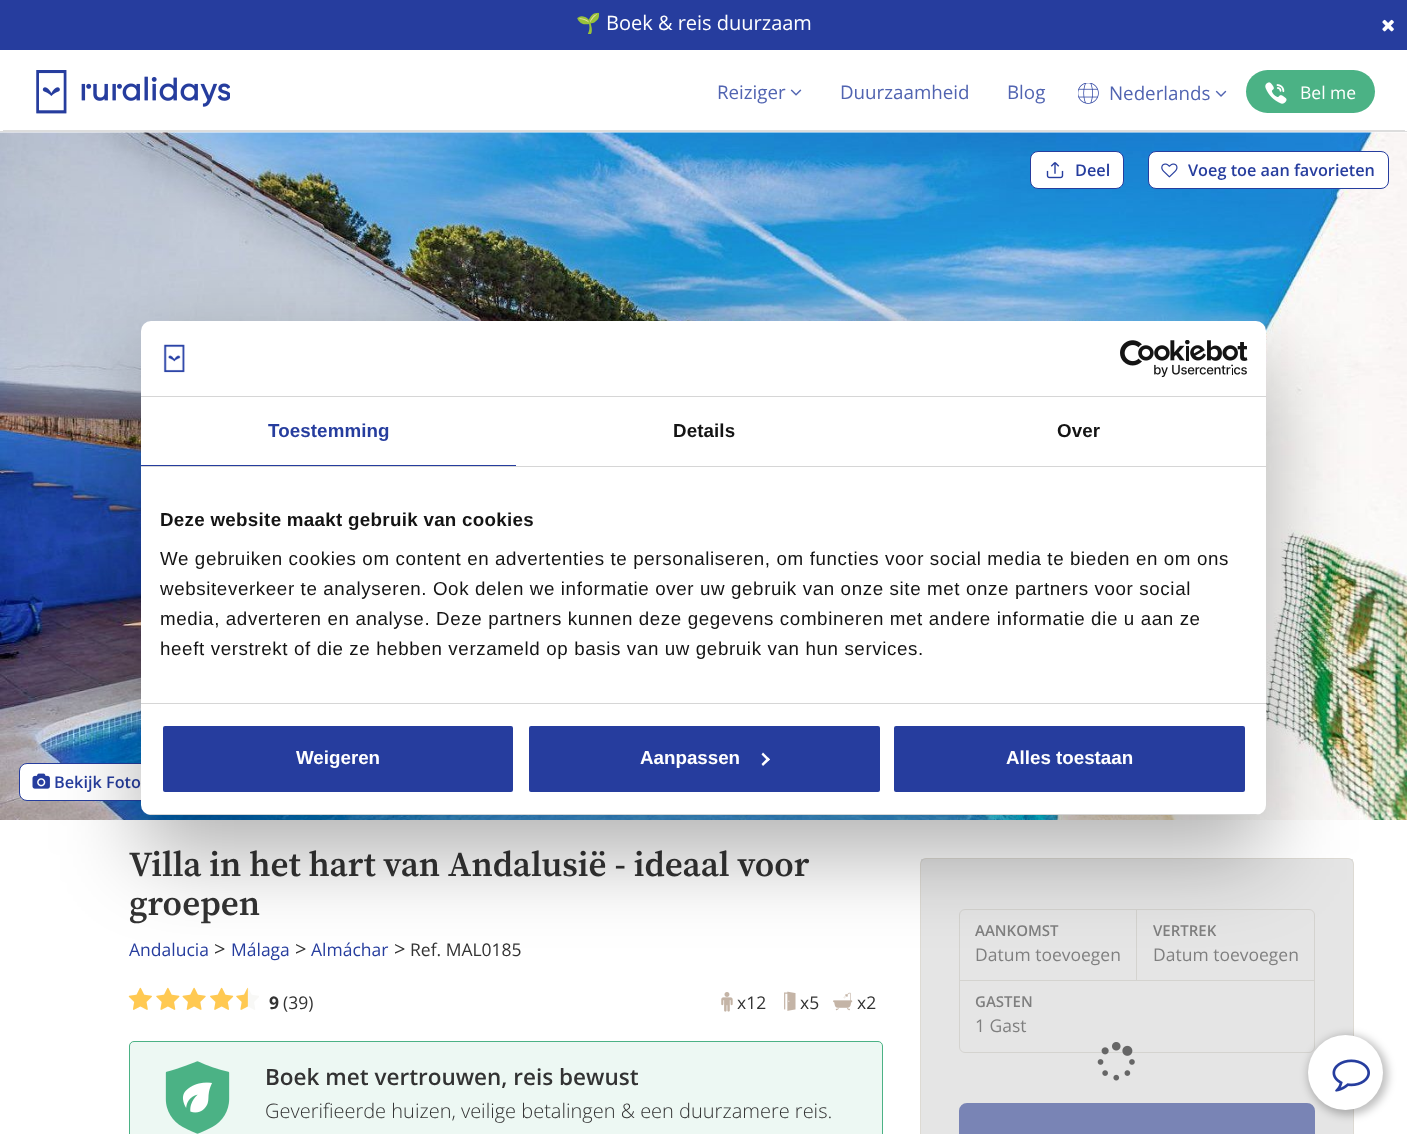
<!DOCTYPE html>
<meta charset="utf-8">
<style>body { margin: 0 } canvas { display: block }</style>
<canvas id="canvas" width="1407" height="1134"></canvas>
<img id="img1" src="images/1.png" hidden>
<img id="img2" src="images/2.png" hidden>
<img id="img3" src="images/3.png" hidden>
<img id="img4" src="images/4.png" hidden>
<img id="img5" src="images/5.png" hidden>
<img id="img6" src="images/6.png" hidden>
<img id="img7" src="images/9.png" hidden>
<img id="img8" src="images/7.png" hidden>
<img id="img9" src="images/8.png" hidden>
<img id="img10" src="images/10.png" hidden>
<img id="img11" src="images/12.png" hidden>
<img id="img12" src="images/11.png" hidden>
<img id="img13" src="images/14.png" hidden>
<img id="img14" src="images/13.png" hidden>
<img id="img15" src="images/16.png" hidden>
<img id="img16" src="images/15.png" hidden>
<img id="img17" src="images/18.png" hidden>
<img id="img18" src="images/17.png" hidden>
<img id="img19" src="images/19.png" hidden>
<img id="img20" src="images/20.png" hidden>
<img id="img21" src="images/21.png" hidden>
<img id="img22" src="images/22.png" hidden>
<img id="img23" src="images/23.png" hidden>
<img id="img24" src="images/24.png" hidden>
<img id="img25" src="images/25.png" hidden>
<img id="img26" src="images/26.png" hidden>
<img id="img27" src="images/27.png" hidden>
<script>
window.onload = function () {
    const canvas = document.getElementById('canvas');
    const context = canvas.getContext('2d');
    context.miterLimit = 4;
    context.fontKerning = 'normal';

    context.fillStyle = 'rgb(255, 255, 255)';
    context.fillRect(0, 0, 1407, 1134);
    context.fillStyle = 'rgb(221, 221, 221)';
    context.fillRect(3, 130, 1402, 1);
    context.fillStyle = 'rgb(38, 61, 158)';
    context.fillRect(0, 0, 1407, 50);
    context.drawImage(document.getElementById('img1'), 1382, 19, 12, 13);
    context.drawImage(document.getElementById('img2'), 36, 70, 194, 44);
    context.drawImage(document.getElementById('img3'), 790, 89, 12, 7);
    context.drawImage(document.getElementById('img4'), 1078, 83, 21, 21);
    context.drawImage(document.getElementById('img5'), 1215, 90, 12, 7);
    context.fillStyle = 'rgb(75, 178, 133)';
    context.beginPath();
    context.roundRect(1246, 70, 129, 43, 21.5);
    context.fill();
    context.drawImage(document.getElementById('img6'), 1265, 82, 22, 22);
    context.fillStyle = 'rgb(221, 221, 221)';
    context.fillRect(0, 131, 1407, 1);
    context.drawImage(document.getElementById('img7'), 0, 132, 1407, 688);
    context.fillStyle = 'rgb(255, 255, 255)';
    context.beginPath();
    context.roundRect(1030.5, 151.5, 93, 37, 7.5);
    context.fill();
    context.strokeStyle = 'rgb(38, 61, 158)';
    context.stroke();
    context.drawImage(document.getElementById('img8'), 1046, 162, 18, 17);
    context.beginPath();
    context.roundRect(1148.5, 151.5, 240, 37, 7.5);
    context.fill();
    context.stroke();
    context.drawImage(document.getElementById('img9'), 1161, 163, 17, 15);
    context.beginPath();
    context.roundRect(19.5, 763.5, 146, 37, 7.5);
    context.fill();
    context.stroke();
    context.drawImage(document.getElementById('img10'), 32, 773, 18, 16);
    context.drawImage(document.getElementById('img11'), 129, 988, 23, 22);
    context.drawImage(document.getElementById('img12'), 128, 987, 24, 23);
    context.drawImage(document.getElementById('img13'), 156, 988, 23, 22);
    context.drawImage(document.getElementById('img14'), 156, 987, 24, 23);
    context.drawImage(document.getElementById('img15'), 183, 988, 23, 22);
    context.drawImage(document.getElementById('img16'), 182, 987, 24, 23);
    context.drawImage(document.getElementById('img17'), 210, 988, 23, 22);
    context.drawImage(document.getElementById('img18'), 210, 987, 24, 23);
    context.drawImage(document.getElementById('img13'), 236, 988, 23, 22);
    context.drawImage(document.getElementById('img19'), 236, 987, 12, 23);
    context.drawImage(document.getElementById('img20'), 721, 992, 12, 20);
    context.drawImage(document.getElementById('img21'), 784, 991, 12, 20);
    context.drawImage(document.getElementById('img22'), 833, 992, 20, 19);
    context.fillStyle = 'rgb(237, 248, 243)';
    context.beginPath();
    context.roundRect(129.5, 1041.5, 753, 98, 4.5);
    context.fill();
    context.strokeStyle = 'rgb(75, 178, 133)';
    context.stroke();
    context.drawImage(document.getElementById('img23'), 165, 1061, 65, 73);
    context.beginPath();
    context.roundRect(920.5, 858.5, 433, 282, 5.5);
    context.strokeStyle = 'rgb(221, 218, 211)';
    context.stroke();
    context.beginPath();
    context.roundRect(959.5, 909.5, 355, 143, 5.5);
    context.stroke();
    context.fillStyle = 'rgb(221, 218, 211)';
    context.fillRect(1136, 910, 1, 70);
    context.fillRect(960, 980, 354, 1);
    context.fillStyle = 'rgb(38, 61, 158)';
    context.beginPath();
    context.roundRect(960.5, 1104.5, 353, 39, 6.5);
    context.fill();
    context.strokeStyle = 'rgb(38, 61, 158)';
    context.lineWidth = 3;
    context.stroke();
    context.font = '20px Noto Color Emoji';
    context.fillStyle = 'rgb(255, 255, 255)';
    context.fillText('🌱', 576, 30);
    context.font = '20px Open Sans';
    context.fillText('Boek & reis duurzaam', 606, 30);
    context.font = '18.75px Open Sans';
    context.fillStyle = 'rgb(81, 100, 177)';
    context.fillText('Reiziger', 717, 99);
    context.fillText('Duurzaamheid', 840, 99);
    context.fillText('Blog', 1007, 99);
    context.fillText('Nederlands', 1109, 100);
    context.font = '17.5px Open Sans';
    context.fillStyle = 'rgb(255, 255, 255)';
    context.fillText('Bel me', 1300, 99);
    context.font = '600 16.25px Open Sans';
    context.fillStyle = 'rgb(38, 61, 158)';
    context.fillText('Deel', 1075, 176);
    context.fillText('Voeg toe aan favorieten', 1188, 176);
    context.fillText('Bekijk Foto', 54, 788);
    context.font = '600 35px "Source Serif 4"';
    context.fillStyle = 'rgb(51, 51, 51)';
    context.fillText('Villa in het hart van Andalusië - ideaal voor', 129, 876);
    context.fillText('groepen', 129, 915);
    context.font = '17.5px Open Sans';
    context.fillStyle = 'rgb(38, 61, 158)';
    context.fillText('Andalucia', 129, 956);
    context.font = '20px Open Sans';
    context.fillStyle = 'rgb(51, 51, 51)';
    context.fillText('>', 214, 956);
    context.font = '17.5px Open Sans';
    context.fillStyle = 'rgb(38, 61, 158)';
    context.fillText('Málaga', 231, 956);
    context.font = '20px Open Sans';
    context.fillStyle = 'rgb(51, 51, 51)';
    context.fillText('>', 295, 956);
    context.font = '17.5px Open Sans';
    context.fillStyle = 'rgb(38, 61, 158)';
    context.fillText('Almáchar', 311, 956);
    context.font = '20px Open Sans';
    context.fillStyle = 'rgb(51, 51, 51)';
    context.fillText('>', 394, 956);
    context.font = '17.5px Open Sans';
    context.fillText('Ref. MAL0185', 410, 956);
    context.font = 'bold 17.5px Open Sans';
    context.fillText('9', 269, 1009);
    context.font = '17.5px Open Sans';
    context.fillText('(39)', 283, 1009);
    context.fillText('x12', 737, 1009);
    context.fillText('x5', 800, 1009);
    context.fillText('x2', 857, 1009);
    context.font = '600 22.5px Open Sans';
    context.fillText('Boek met vertrouwen, reis bewust', 265, 1085);
    context.font = '300 20px Open Sans';
    context.fillText('Geverifieerde huizen, veilige betalingen & een duurzamere reis.', 265, 1118);
    context.font = '600 15px Open Sans';
    context.fillText('AANKOMST', 975, 936);
    context.font = '17.5px Open Sans';
    context.fillText('Datum toevoegen', 975, 961);
    context.font = '600 15px Open Sans';
    context.fillText('VERTREK', 1153, 936);
    context.font = '17.5px Open Sans';
    context.fillText('Datum toevoegen', 1153, 961);
    context.font = '600 15px Open Sans';
    context.fillText('GASTEN', 975, 1007);
    context.font = '17.5px Open Sans';
    context.fillText('1 Gast', 975, 1032);
    context.fillStyle = 'rgba(204, 204, 204, 0.5)';
    context.fillRect(921, 859, 432, 275);
    context.drawImage(document.getElementById('img24'), 1097, 1042, 38, 39);
    context.fillStyle = 'rgba(0, 0, 0, 0.3)';
    context.filter = 'blur(42.5px)';
    context.beginPath();
    context.roundRect(141, 361, 1125, 494, 10);
    context.fill();
    context.filter = 'none';
    context.fillStyle = 'rgb(255, 255, 255)';
    context.beginPath();
    context.roundRect(141, 321, 1125, 494, 10);
    context.fill();
    context.fillStyle = 'rgb(214, 214, 214)';
    context.fillRect(141, 396, 1125, 1);
    context.drawImage(document.getElementById('img25'), 163, 344, 22, 29);
    context.drawImage(document.getElementById('img26'), 1120, 340, 128, 38);
    context.fillRect(141, 466, 1125, 1);
    context.fillStyle = 'rgb(38, 61, 158)';
    context.fillRect(141, 465, 375, 1);
    context.letterSpacing = '0.1px';
    context.font = 'bold 18.75px Liberation Sans';
    context.fillText('Toestemming', 268, 437);
    context.fillStyle = 'rgb(20, 20, 20)';
    context.fillText('Details', 673, 437);
    context.fillText('Over', 1057, 437);
    context.fillStyle = 'rgb(214, 214, 214)';
    context.fillRect(141, 703, 1125, 1);
    context.letterSpacing = '0.3px';
    context.fillStyle = 'rgb(20, 20, 20)';
    context.fillText('Deze website maakt gebruik van cookies', 160, 526);
    context.letterSpacing = '0.62px';
    context.font = '18.75px Liberation Sans';
    context.fillText('We gebruiken cookies om content en advertenties te personaliseren, om functies voor social media te bieden en om ons', 160, 565);
    context.fillText('websiteverkeer te analyseren. Ook delen we informatie over uw gebruik van onze site met onze partners voor social', 160, 595);
    context.fillText('media, adverteren en analyse. Deze partners kunnen deze gegevens combineren met andere informatie die u aan ze', 160, 625);
    context.fillText('heeft verstrekt of die ze hebben verzameld op basis van uw gebruik van hun services.', 160, 655);
    context.save();
    context.beginPath();
    context.roundRect(141, 321, 1125, 494, 10);
    context.clip();
    context.fillStyle = 'rgb(214, 214, 214)';
    context.fillRect(141, 814, 1125, 1);
    context.restore();
    context.fillStyle = 'rgb(38, 61, 158)';
    context.beginPath();
    context.roundRect(161.5, 724.5, 353, 69, 3.5);
    context.fill();
    context.strokeStyle = 'rgb(255, 255, 255)';
    context.stroke();
    context.letterSpacing = '0px';
    context.font = 'bold 18.75px Liberation Sans';
    context.fillStyle = 'rgb(255, 255, 255)';
    context.fillText('Weigeren', 296, 764);
    context.fillStyle = 'rgb(38, 61, 158)';
    context.beginPath();
    context.roundRect(527.5, 724.5, 354, 69, 3.5);
    context.fill();
    context.stroke();
    context.fillStyle = 'rgb(255, 255, 255)';
    context.fillText('Aanpassen', 640, 764);
    context.beginPath();
    context.moveTo(763, 752.5);
    context.lineTo(770, 759.5);
    context.lineTo(768, 761);
    context.lineTo(761.5, 754.5);
    context.closePath();
    context.fill();
    context.beginPath();
    context.moveTo(768, 757.5);
    context.lineTo(770, 759.5);
    context.lineTo(763, 766);
    context.lineTo(761.5, 764);
    context.closePath();
    context.fill();
    context.fillStyle = 'rgb(38, 61, 158)';
    context.beginPath();
    context.roundRect(892.5, 724.5, 354, 69, 3.5);
    context.fill();
    context.stroke();
    context.fillStyle = 'rgb(255, 255, 255)';
    context.fillText('Alles toestaan', 1006, 764);
    context.fillStyle = 'rgba(0, 0, 0, 0.25)';
    context.filter = 'blur(4.5px)';
    context.beginPath();
    context.roundRect(1308, 1035, 80, 80, 40);
    context.fill();
    context.filter = 'none';
    context.fillStyle = 'rgb(255, 255, 255)';
    context.beginPath();
    context.arc(1345.5, 1072.5, 37.5, 0, 2 * Math.PI);
    context.fill();
    context.drawImage(document.getElementById('img27'), 1332, 1059, 38, 33);
};
</script>
